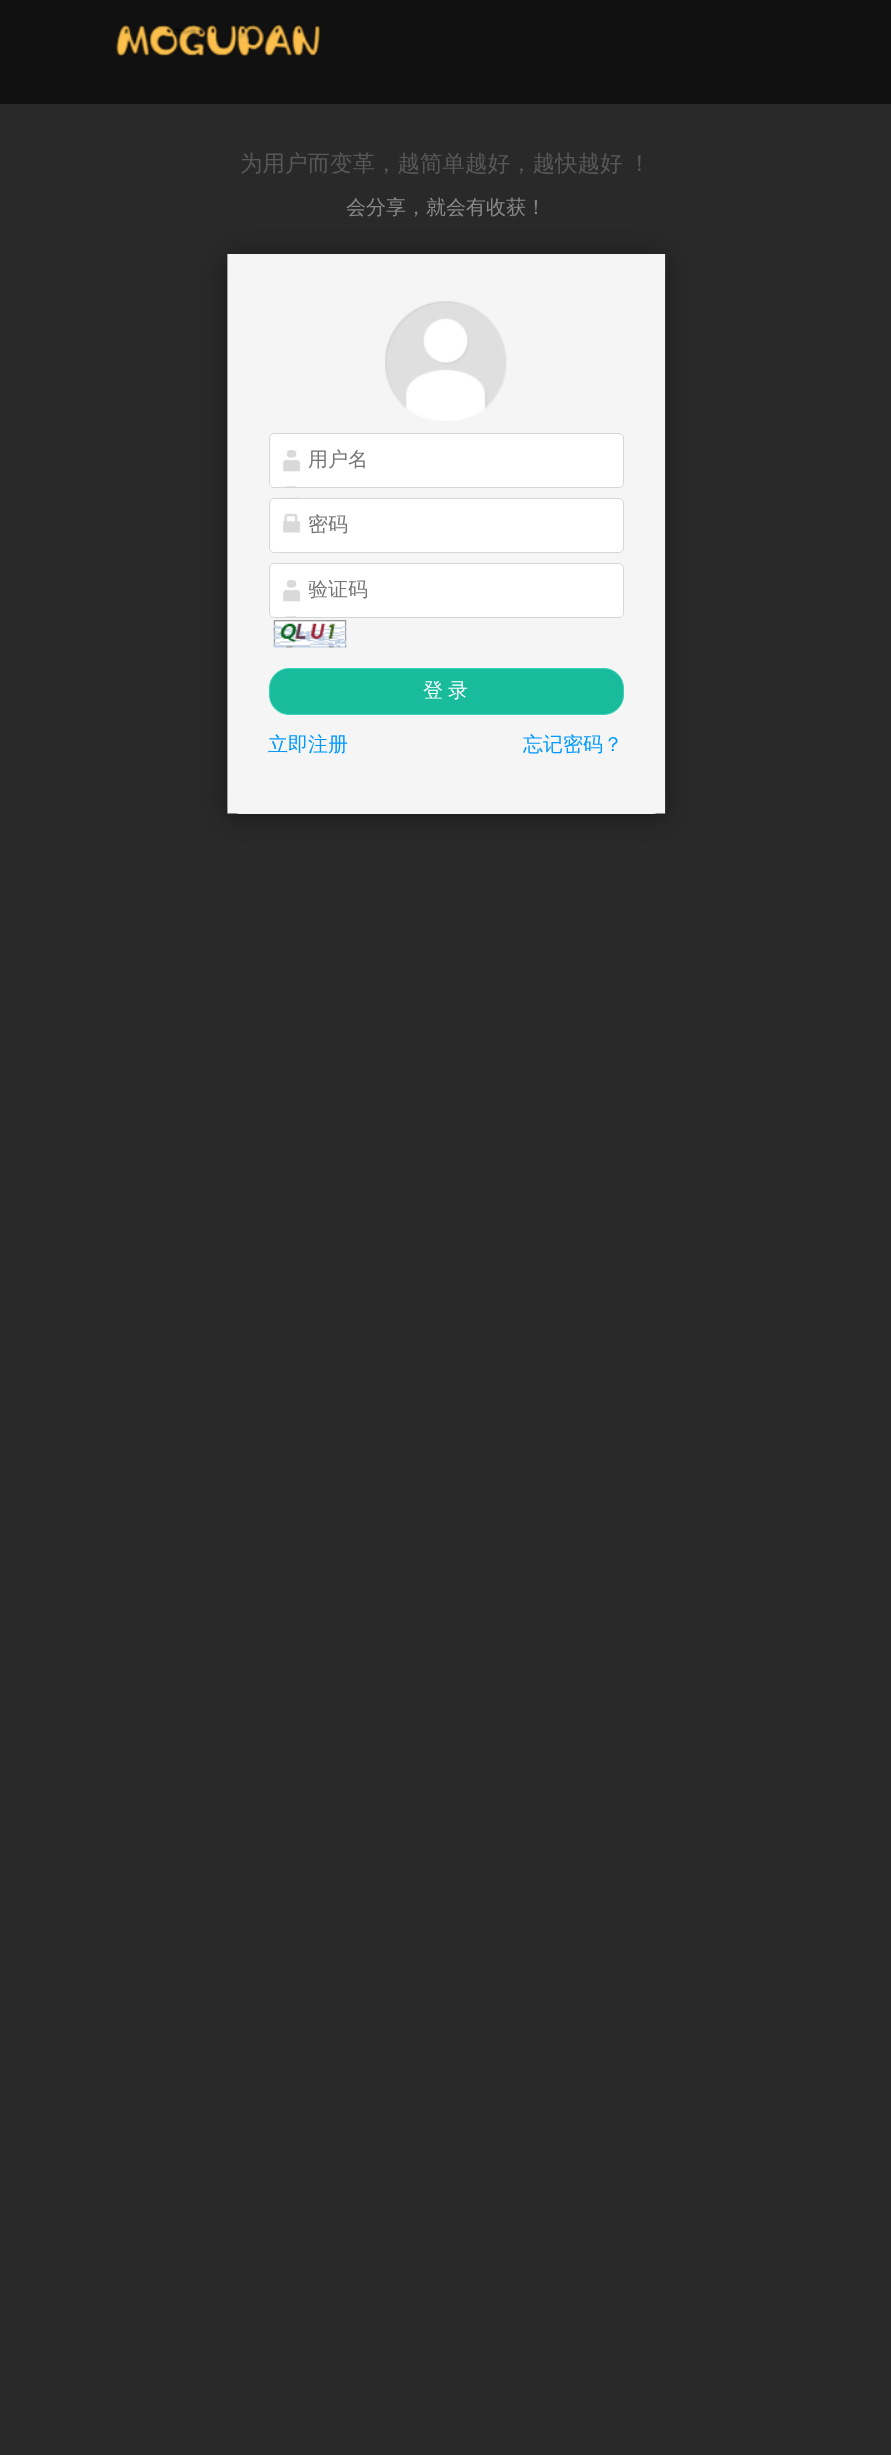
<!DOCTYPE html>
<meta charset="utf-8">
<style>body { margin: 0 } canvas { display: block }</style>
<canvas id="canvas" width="891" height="2455"></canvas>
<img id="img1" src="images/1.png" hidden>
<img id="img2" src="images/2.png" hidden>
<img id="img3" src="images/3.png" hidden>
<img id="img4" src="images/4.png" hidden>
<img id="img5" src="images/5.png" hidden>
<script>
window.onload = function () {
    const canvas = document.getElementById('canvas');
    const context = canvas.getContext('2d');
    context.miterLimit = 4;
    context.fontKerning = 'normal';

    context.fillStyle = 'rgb(41, 41, 41)';
    context.fillRect(0, 0, 891, 2455);
    context.fillStyle = 'rgb(17, 17, 17)';
    context.fillRect(0, 0, 891, 104);
    context.drawImage(document.getElementById('img1'), 116, 24, 205, 33);
    context.fillStyle = 'rgba(0, 0, 0, 0.3)';
    context.filter = 'blur(10.5px)';
    context.beginPath();
    context.roundRect(223, 253, 445, 567, 16);
    context.fill();
    context.filter = 'none';
    context.fillStyle = 'rgb(245, 245, 245)';
    context.beginPath();
    context.roundRect(228, 254, 437, 560, 13);
    context.fill();
    context.beginPath();
    context.moveTo(245.5, 272);
    context.lineTo(647, 272);
    context.lineTo(647, 795.5);
    context.lineTo(245.5, 795.5);
    context.closePath();
    context.strokeStyle = 'rgb(245, 245, 245)';
    context.lineWidth = 36.2;
    context.stroke();
    context.drawImage(document.getElementById('img2'), 385, 301, 122, 120);
    context.fillStyle = 'rgb(255, 255, 255)';
    context.beginPath();
    context.roundRect(269, 433, 355, 55, 5);
    context.fill();
    context.drawImage(document.getElementById('img3'), 283, 450, 18, 37);
    context.beginPath();
    context.roundRect(269.5, 433.5, 354, 54, 4.5);
    context.strokeStyle = 'rgb(214, 214, 214)';
    context.lineWidth = 1;
    context.stroke();
    context.beginPath();
    context.roundRect(269, 498, 355, 55, 5);
    context.fill();
    context.drawImage(document.getElementById('img4'), 283, 497, 18, 36);
    context.beginPath();
    context.roundRect(269.5, 498.5, 354, 54, 4.5);
    context.stroke();
    context.beginPath();
    context.roundRect(269, 563, 355, 55, 5);
    context.fill();
    context.drawImage(document.getElementById('img3'), 283, 580, 18, 37);
    context.beginPath();
    context.roundRect(269.5, 563.5, 354, 54, 4.5);
    context.stroke();
    context.drawImage(document.getElementById('img5'), 273, 620, 74, 28);
    context.fillStyle = 'rgb(24, 188, 156)';
    context.beginPath();
    context.roundRect(269.5, 668.5, 354, 46, 19.5);
    context.fill();
    context.strokeStyle = 'rgb(62, 211, 182)';
    context.stroke();
    context.wordSpacing = '-1px';
    context.font = '500 22.5px WenQuanYi Zen Hei';
    context.fillStyle = 'rgb(88, 88, 88)';
    context.fillText('为用户而变革，越简单越好，越快越好 ！', 240, 171);
    context.wordSpacing = '0px';
    context.font = '500 20px WenQuanYi Zen Hei';
    context.fillStyle = 'rgb(136, 136, 136)';
    context.fillText('会分享，就会有收获！', 346, 214);
    context.fillStyle = 'rgb(117, 117, 117)';
    context.fillText('用户名', 308, 466);
    context.fillText('密码', 308, 531);
    context.save();
    context.beginPath();
    context.rect(309, 578, 302, 26);
    context.clip();
    context.fillText('验证码', 308, 596);
    context.restore();
    context.wordSpacing = '-1px';
    context.fillStyle = 'rgb(255, 255, 255)';
    context.fillText('登 录', 423, 697);
    context.wordSpacing = '0px';
    context.fillStyle = 'rgb(0, 153, 255)';
    context.fillText('立即注册', 268, 751);
    context.fillText('忘记密码？', 523, 751);
};
</script>
